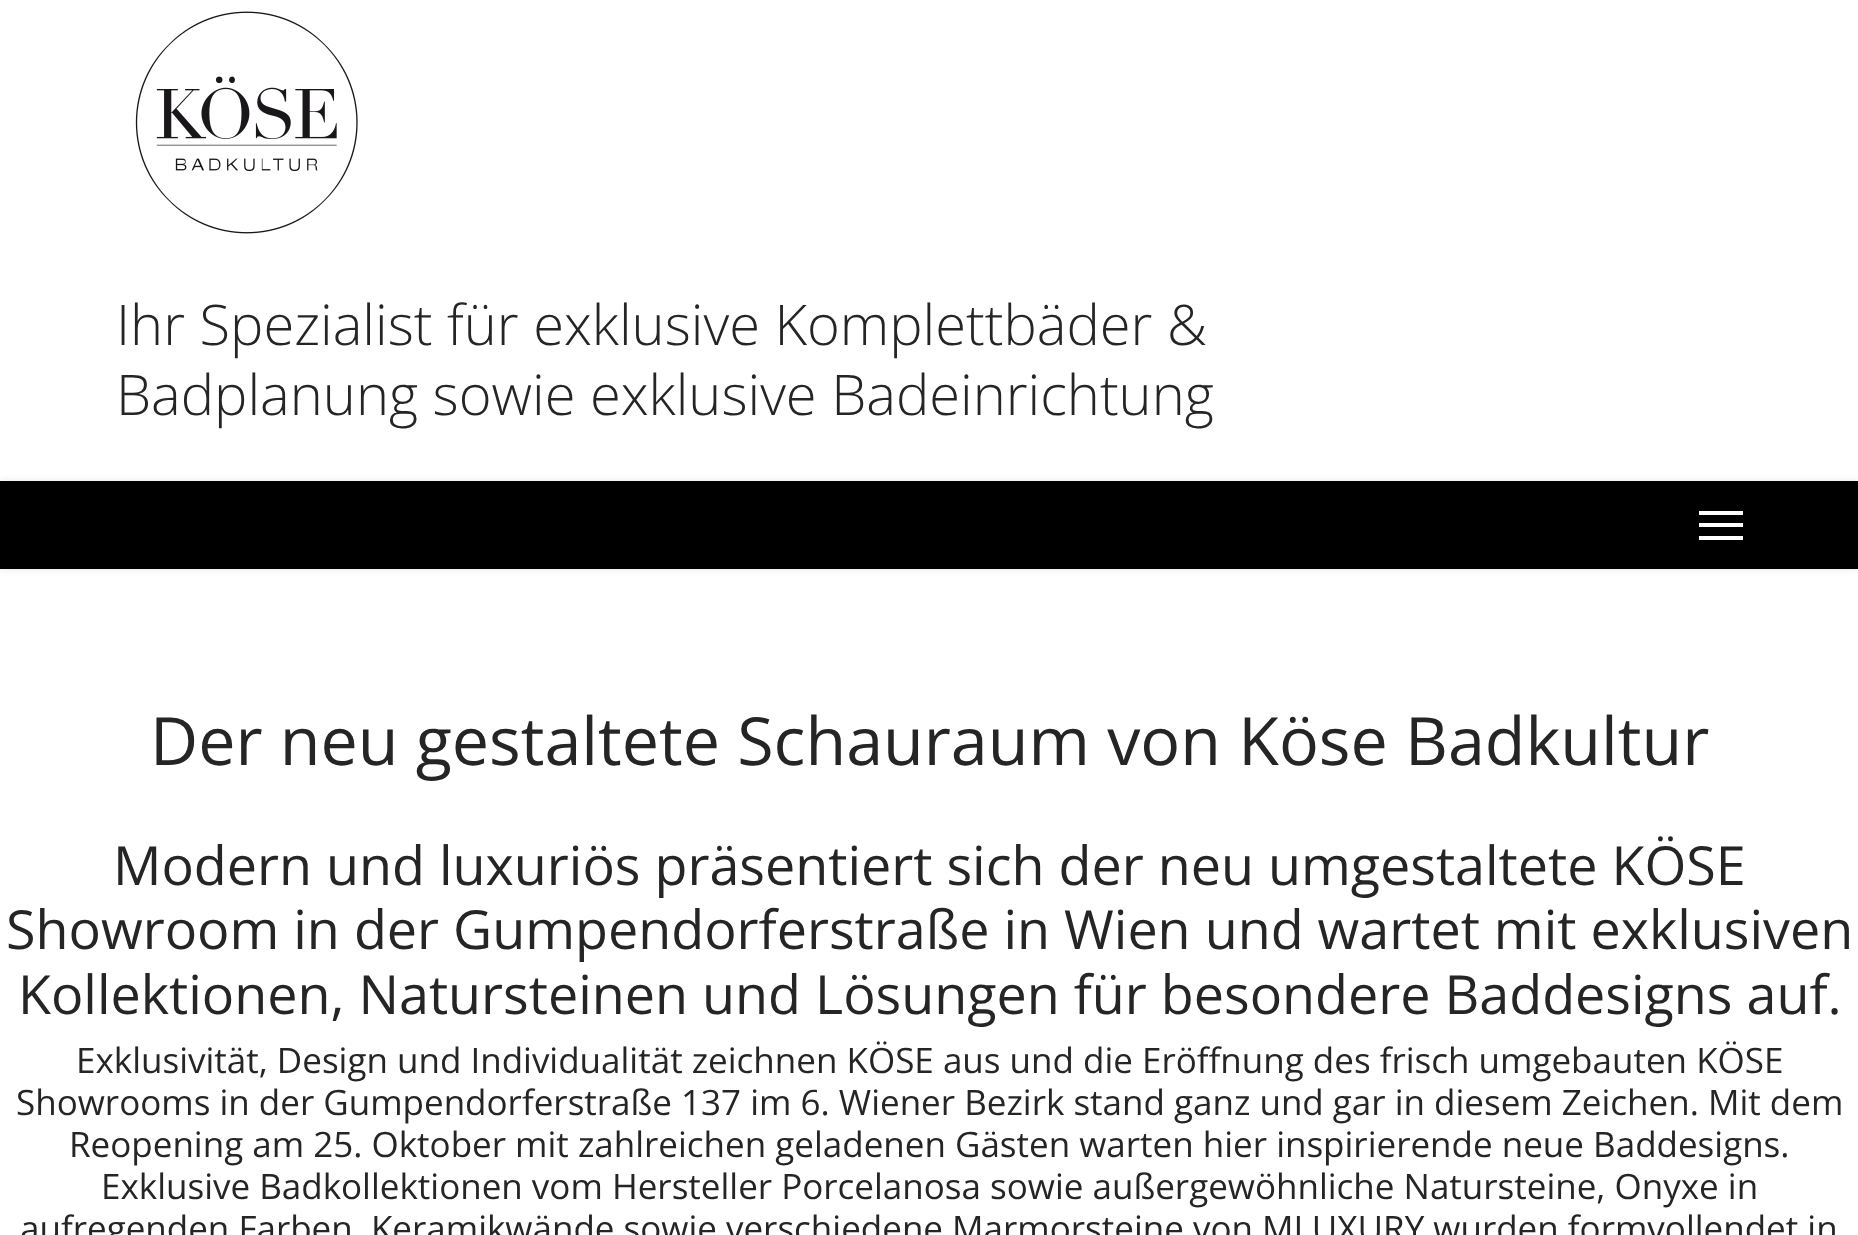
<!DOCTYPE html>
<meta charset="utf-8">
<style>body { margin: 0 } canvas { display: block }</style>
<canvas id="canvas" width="1858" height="1235"></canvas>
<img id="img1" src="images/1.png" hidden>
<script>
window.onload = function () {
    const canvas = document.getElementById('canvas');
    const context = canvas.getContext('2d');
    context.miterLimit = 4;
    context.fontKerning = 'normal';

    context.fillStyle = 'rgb(255, 255, 255)';
    context.fillRect(0, 0, 1858, 1235);
    context.drawImage(document.getElementById('img1'), 135, 11, 223, 223);
    context.fillStyle = 'rgba(0, 0, 0, 0.1)';
    context.filter = 'blur(3.5px)';
    context.beginPath();
    context.rect(0, 481, 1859, 88);
    context.fill();
    context.filter = 'none';
    context.fillStyle = 'rgb(0, 0, 0)';
    context.fillRect(0, 481, 1858, 88);
    context.fillStyle = 'rgb(255, 255, 255)';
    context.fillRect(1699, 511, 44, 4);
    context.fillRect(1699, 523, 44, 4);
    context.fillRect(1699, 536, 44, 4);
    context.font = '300 56px Open Sans';
    context.fillStyle = 'rgb(37, 37, 37)';
    context.fillText('Ihr Spezialist für exklusive Komplettbäder &', 116, 345);
    context.fillText('Badplanung sowie exklusive Badeinrichtung', 116, 415);
    context.font = '66.4px Open Sans';
    context.fillText('Der neu gestaltete Schauraum von Köse Badkultur', 150, 765);
    context.font = '53.85px Open Sans';
    context.fillText('Modern und luxuriös präsentiert sich der neu umgestaltete KÖSE', 113, 885);
    context.fillText('Showroom in der Gumpendorferstraße in Wien und wartet mit exklusiven', 6, 949);
    context.fillText('Kollektionen, Natursteinen und Lösungen für besondere Baddesigns auf.', 18, 1014);
    context.font = '35px Open Sans';
    context.fillText('Exklusivität, Design und Individualität zeichnen KÖSE aus und die Eröffnung des frisch umgebauten KÖSE', 76, 1073);
    context.fillText('Showrooms in der Gumpendorferstraße 137 im 6. Wiener Bezirk stand ganz und gar in diesem Zeichen. Mit dem', 16, 1115);
    context.fillText('Reopening am 25. Oktober mit zahlreichen geladenen Gästen warten hier inspirierende neue Baddesigns.', 69, 1157);
    context.fillText('Exklusive Badkollektionen vom Hersteller Porcelanosa sowie außergewöhnliche Natursteine, Onyxe in', 101, 1199);
    context.fillText('aufregenden Farben, Keramikwände sowie verschiedene Marmorsteine von MLUXURY wurden formvollendet in', 20, 1241);
};
</script>
